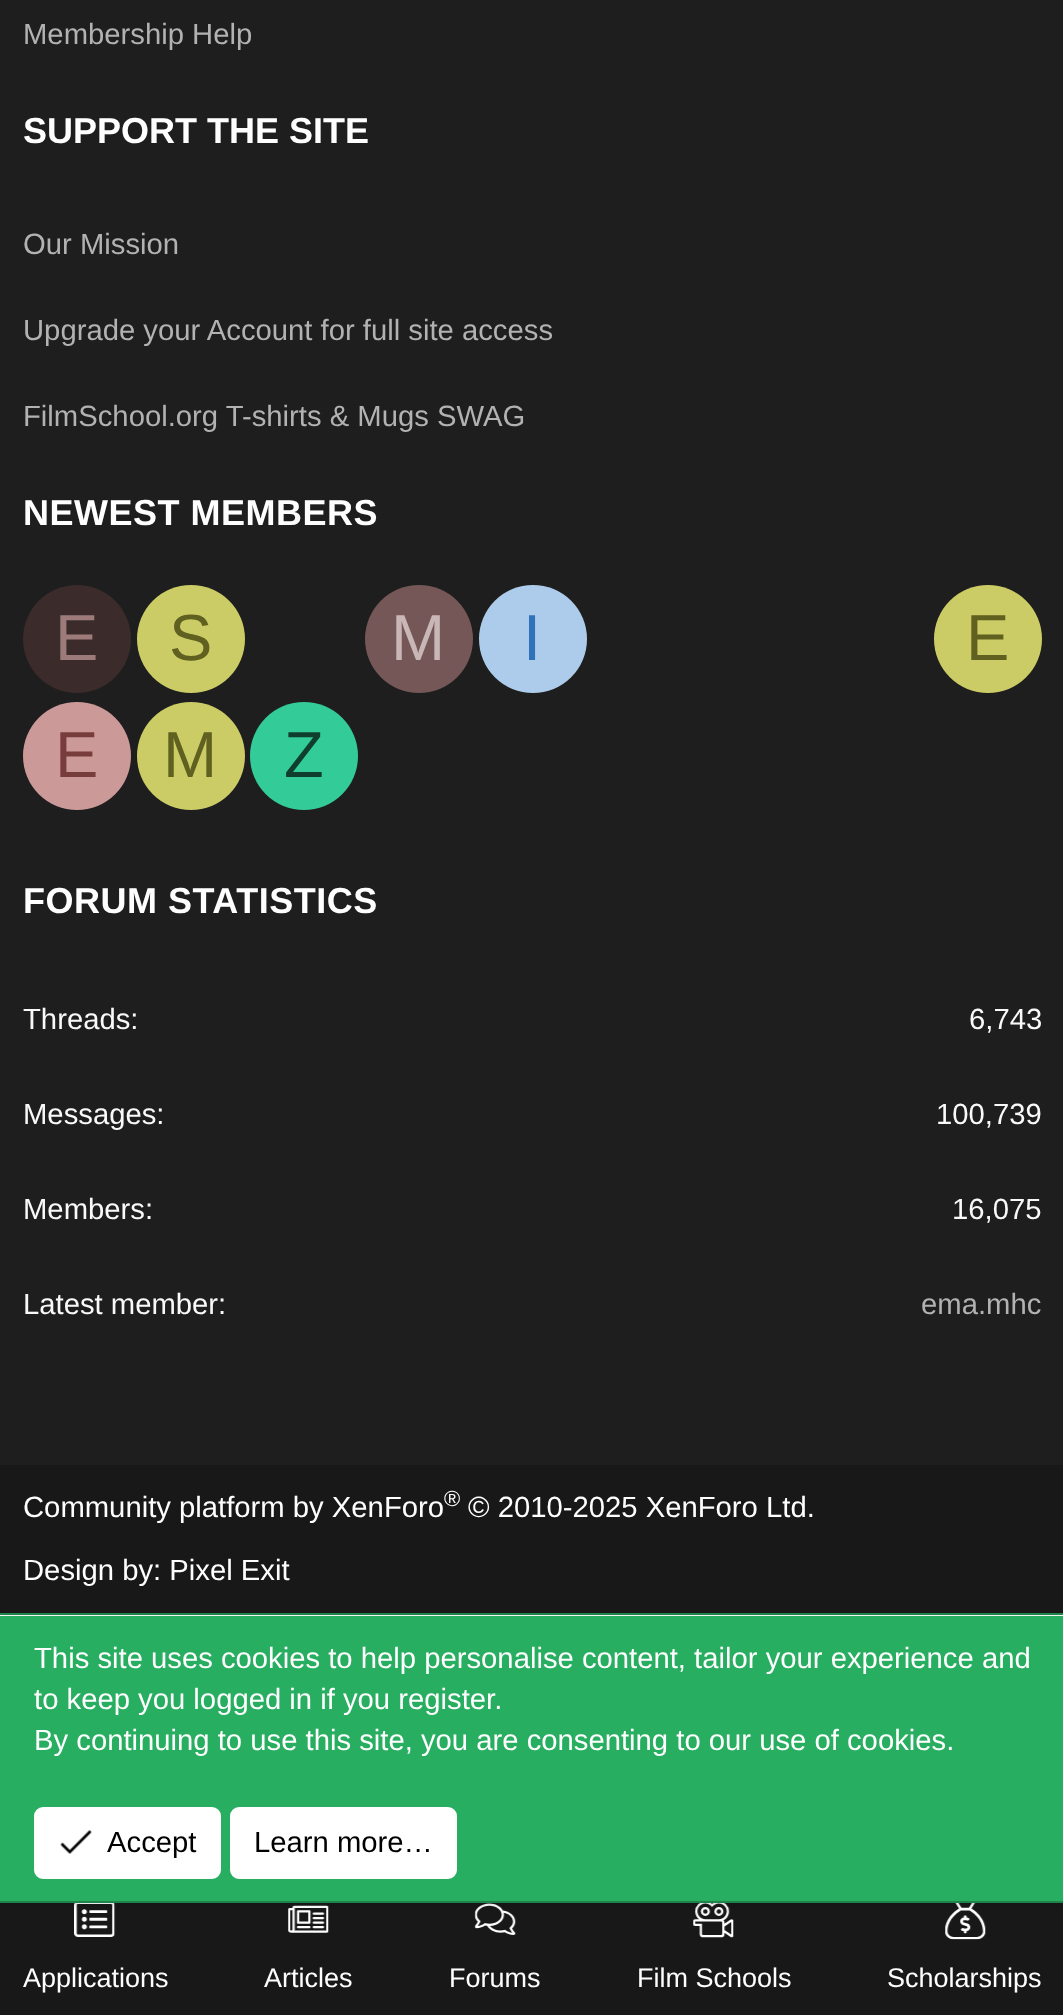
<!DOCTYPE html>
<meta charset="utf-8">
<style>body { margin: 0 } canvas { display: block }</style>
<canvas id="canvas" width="1063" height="2015"></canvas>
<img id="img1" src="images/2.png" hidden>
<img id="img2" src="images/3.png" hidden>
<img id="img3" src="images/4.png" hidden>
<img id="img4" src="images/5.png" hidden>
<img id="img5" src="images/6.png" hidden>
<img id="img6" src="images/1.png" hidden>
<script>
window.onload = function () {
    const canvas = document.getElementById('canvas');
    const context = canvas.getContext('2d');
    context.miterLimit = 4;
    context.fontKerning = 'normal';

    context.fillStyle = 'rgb(255, 255, 255)';
    context.fillRect(0, 0, 1063, 2015);
    context.fillStyle = 'rgb(30, 30, 30)';
    context.fillRect(0, 0, 1063, 1465);
    context.fillStyle = 'rgb(59, 43, 43)';
    context.beginPath();
    context.arc(77, 639, 54, 0, 2 * Math.PI);
    context.fill();
    context.fillStyle = 'rgb(204, 204, 102)';
    context.beginPath();
    context.arc(191, 639, 54, 0, 2 * Math.PI);
    context.fill();
    context.fillStyle = 'rgb(117, 87, 87)';
    context.beginPath();
    context.arc(419, 639, 54, 0, 2 * Math.PI);
    context.fill();
    context.fillStyle = 'rgb(173, 204, 235)';
    context.beginPath();
    context.arc(533, 639, 54, 0, 2 * Math.PI);
    context.fill();
    context.fillStyle = 'rgb(204, 204, 102)';
    context.beginPath();
    context.arc(988, 639, 54, 0, 2 * Math.PI);
    context.fill();
    context.fillStyle = 'rgb(204, 153, 153)';
    context.beginPath();
    context.arc(77, 756, 54, 0, 2 * Math.PI);
    context.fill();
    context.fillStyle = 'rgb(204, 204, 102)';
    context.beginPath();
    context.arc(191, 756, 54, 0, 2 * Math.PI);
    context.fill();
    context.fillStyle = 'rgb(51, 204, 153)';
    context.beginPath();
    context.arc(304, 756, 54, 0, 2 * Math.PI);
    context.fill();
    context.fillStyle = 'rgb(24, 24, 24)';
    context.fillRect(0, 1465, 1063, 148);
    context.fillRect(0, 1903, 1063, 112);
    context.drawImage(document.getElementById('img1'), 74, 1903, 42, 34);
    context.drawImage(document.getElementById('img2'), 288, 1905, 41, 28);
    context.drawImage(document.getElementById('img3'), 474, 1903, 42, 32);
    context.drawImage(document.getElementById('img4'), 693, 1903, 41, 35);
    context.drawImage(document.getElementById('img5'), 945, 1903, 41, 37);
    context.fillStyle = 'rgba(0, 0, 0, 0.1)';
    context.filter = 'blur(2px)';
    context.beginPath();
    context.rect(0, 1616, 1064, 290);
    context.fill();
    context.filter = 'none';
    context.fillStyle = 'rgb(39, 174, 96)';
    context.fillRect(0, 1616, 1063, 285);
    context.fillStyle = 'rgb(30, 132, 73)';
    context.fillRect(0, 1613, 1063, 2);
    context.fillRect(0, 1901, 1063, 2);
    context.fillStyle = 'rgb(255, 255, 255)';
    context.beginPath();
    context.roundRect(35, 1808, 185, 70, 8);
    context.fill();
    context.strokeStyle = 'rgb(255, 255, 255)';
    context.lineWidth = 2;
    context.stroke();
    context.drawImage(document.getElementById('img6'), 60, 1830, 32, 24);
    context.beginPath();
    context.roundRect(231, 1808, 225, 70, 8);
    context.fill();
    context.stroke();
    context.font = '29.25px Liberation Sans';
    context.fillStyle = 'rgb(178, 178, 178)';
    context.fillText('Membership Help', 23, 44);
    context.font = 'bold 36px Liberation Sans';
    context.fillStyle = 'rgb(255, 254, 254)';
    context.fillText('SUPPORT THE SITE', 23, 143);
    context.font = '29.25px Liberation Sans';
    context.fillStyle = 'rgb(178, 178, 178)';
    context.fillText('Our Mission', 23, 254);
    context.fillText('Upgrade your Account for full site access', 23, 340);
    context.fillText('FilmSchool.org T-shirts & Mugs SWAG', 23, 426);
    context.letterSpacing = '0.5px';
    context.font = 'bold 36px Liberation Sans';
    context.fillStyle = 'rgb(255, 254, 254)';
    context.fillText('NEWEST MEMBERS', 23, 525);
    context.letterSpacing = '0px';
    context.font = '65px Liberation Sans';
    context.fillStyle = 'rgb(157, 123, 123)';
    context.fillText('E', 55, 660);
    context.fillStyle = 'rgb(96, 96, 32)';
    context.fillText('S', 169, 660);
    context.fillStyle = 'rgb(201, 182, 182)';
    context.fillText('M', 391, 660);
    context.fillStyle = 'rgb(46, 115, 184)';
    context.fillText('I', 523, 660);
    context.fillStyle = 'rgb(96, 96, 32)';
    context.fillText('E', 966, 660);
    context.fillStyle = 'rgb(119, 60, 60)';
    context.fillText('E', 55, 777);
    context.fillStyle = 'rgb(96, 96, 32)';
    context.fillText('M', 163, 777);
    context.fillStyle = 'rgb(15, 61, 46)';
    context.fillText('Z', 284, 777);
    context.letterSpacing = '0.5px';
    context.font = 'bold 36px Liberation Sans';
    context.fillStyle = 'rgb(255, 254, 254)';
    context.fillText('FORUM STATISTICS', 23, 913);
    context.letterSpacing = '0px';
    context.font = '29.25px Liberation Sans';
    context.fillStyle = 'rgb(249, 249, 249)';
    context.fillText('Threads:', 23, 1029);
    context.fillText('6,743', 969, 1029);
    context.fillText('Messages:', 23, 1124);
    context.fillText('100,739', 936, 1124);
    context.fillText('Members:', 23, 1219);
    context.fillText('16,075', 952, 1219);
    context.fillText('Latest member:', 23, 1314);
    context.fillStyle = 'rgb(178, 178, 178)';
    context.fillText('ema.mhc', 921, 1314);
    context.fillStyle = 'rgb(255, 254, 254)';
    context.fillText('Community platform by XenForo', 23, 1517);
    context.font = '22px Liberation Sans';
    context.fillText('®', 444, 1506);
    context.font = '29.25px Liberation Sans';
    context.fillText('© 2010-2025 XenForo Ltd.', 468, 1517);
    context.fillText('Design by: Pixel Exit', 23, 1580);
    context.fillText('This site uses cookies to help personalise content, tailor your experience and', 34, 1668);
    context.fillText('to keep you logged in if you register.', 34, 1709);
    context.fillText('By continuing to use this site, you are consenting to our use of cookies.', 34, 1750);
    context.fillStyle = 'rgb(0, 0, 0)';
    context.fillText('Accept', 107, 1852);
    context.fillText('Learn more…', 254, 1852);
    context.font = '27px Liberation Sans';
    context.fillStyle = 'rgb(255, 254, 254)';
    context.fillText('Applications', 23, 1987);
    context.fillText('Articles', 264, 1987);
    context.fillText('Forums', 449, 1987);
    context.fillText('Film Schools', 637, 1987);
    context.fillText('Scholarships', 887, 1987);
};
</script>
